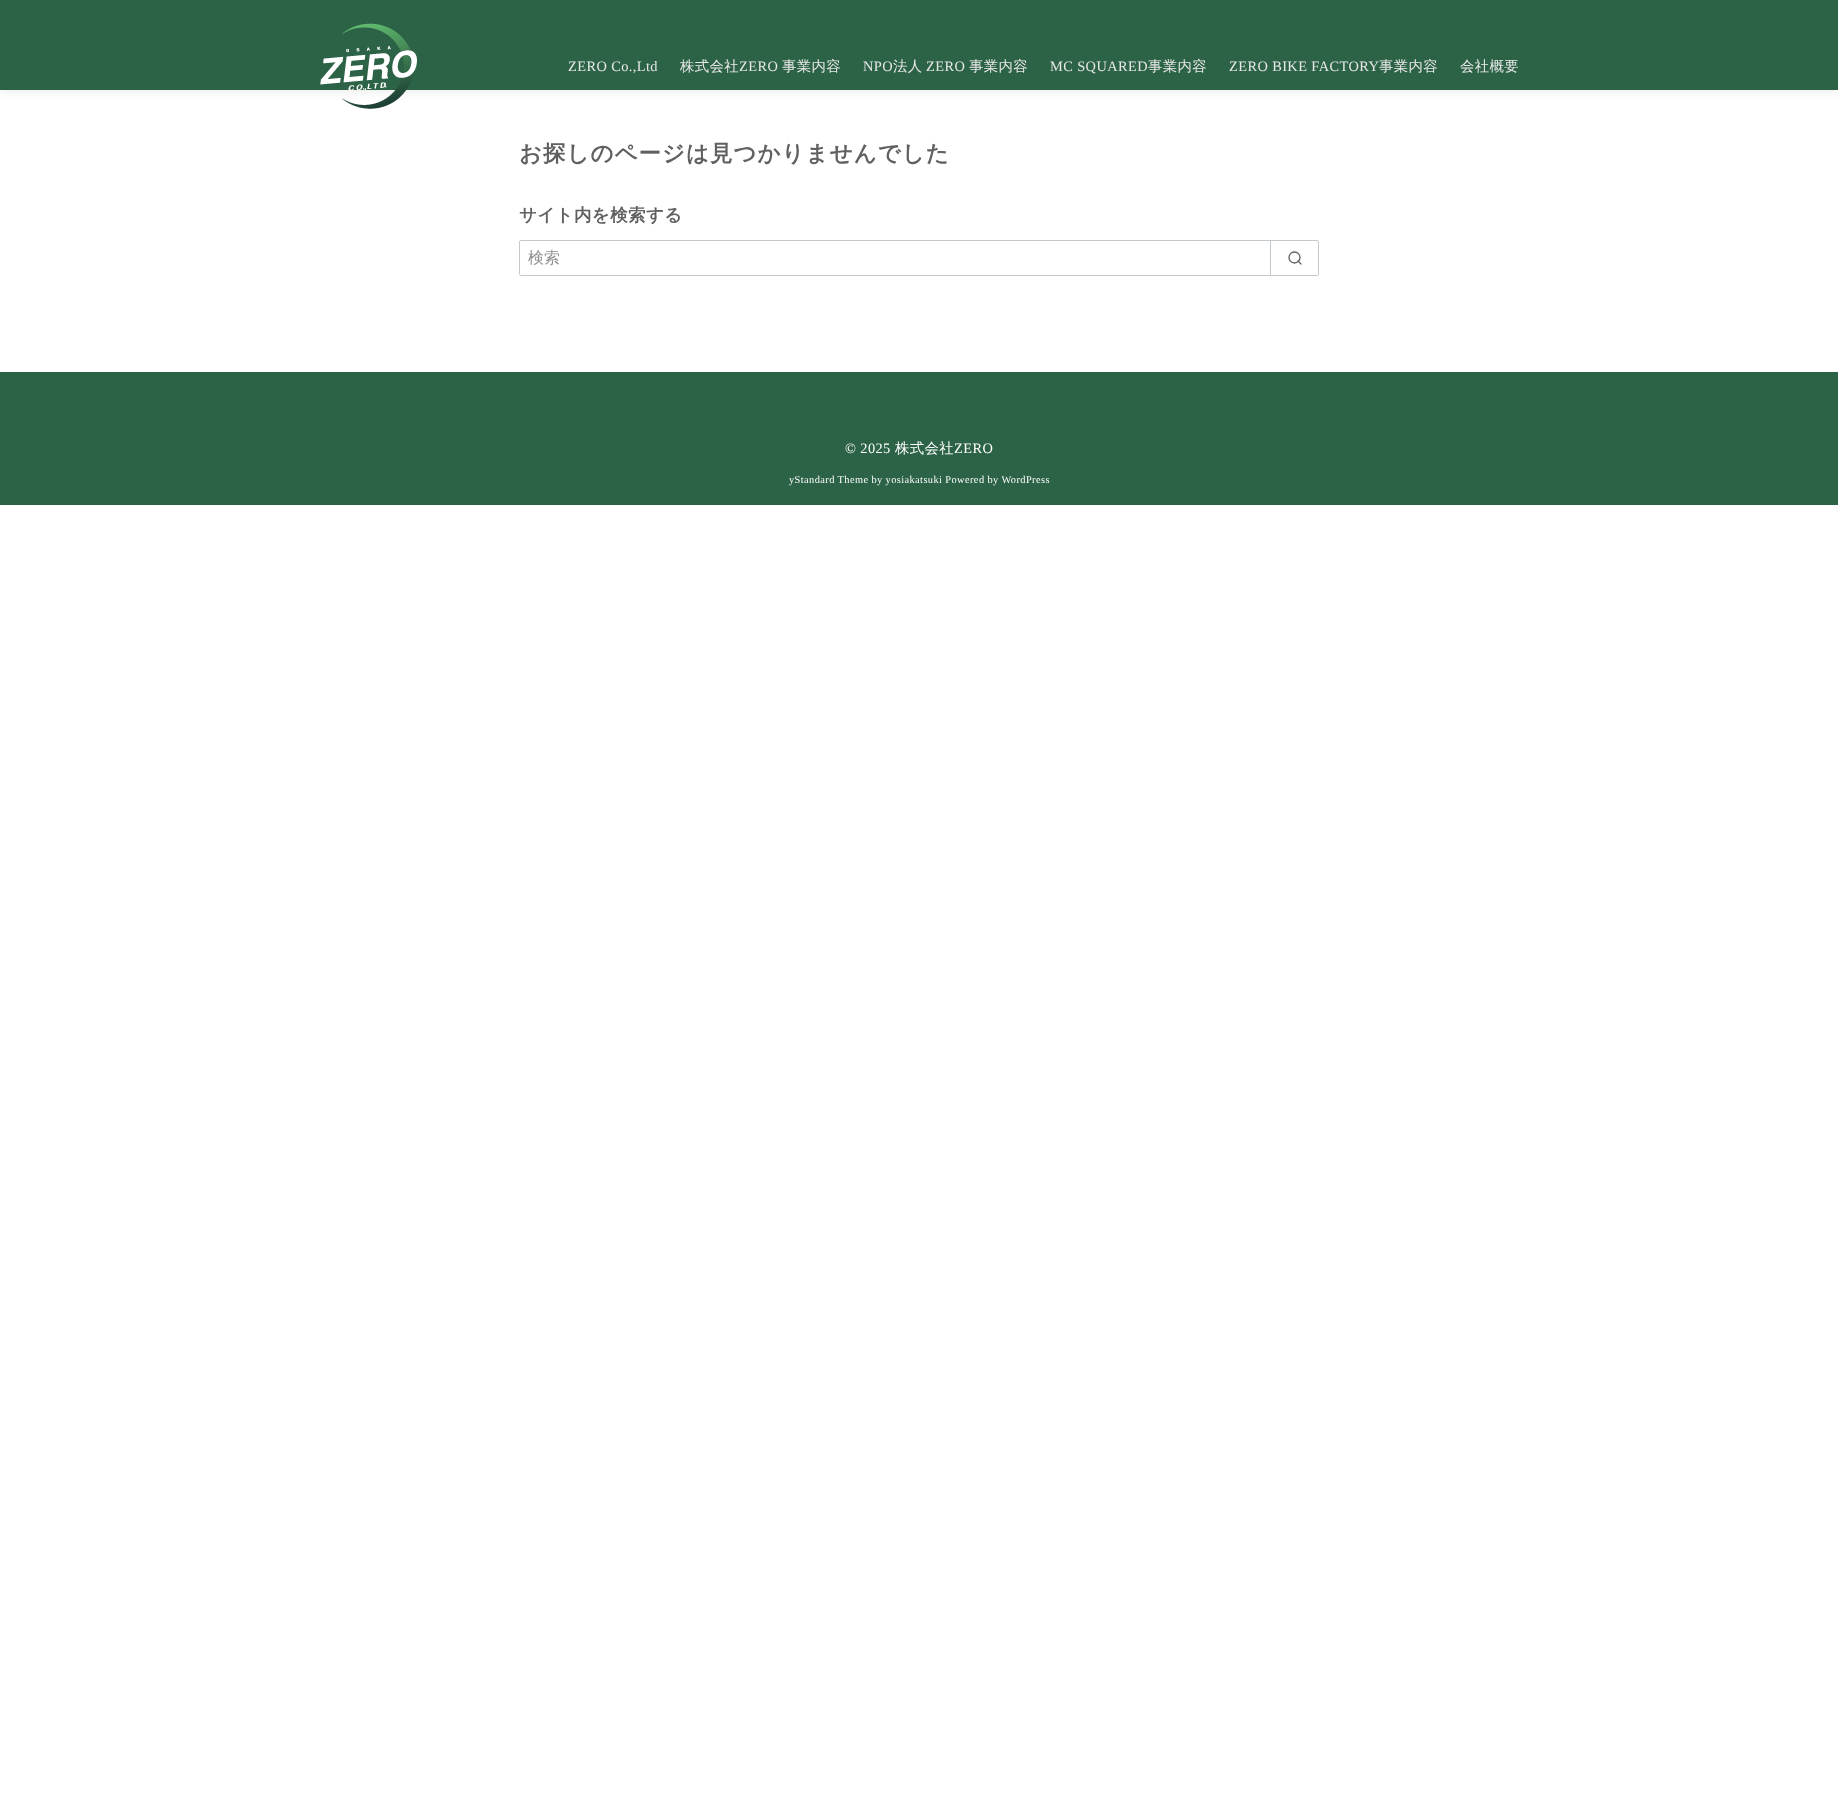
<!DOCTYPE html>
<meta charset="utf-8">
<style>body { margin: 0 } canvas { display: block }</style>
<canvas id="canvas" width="1838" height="1806"></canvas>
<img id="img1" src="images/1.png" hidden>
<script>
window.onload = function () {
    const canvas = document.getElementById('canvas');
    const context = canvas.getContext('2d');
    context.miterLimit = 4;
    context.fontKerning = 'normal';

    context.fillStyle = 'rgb(255, 255, 255)';
    context.fillRect(0, 0, 1838, 1806);
    context.fillStyle = 'rgba(0, 0, 0, 0.1)';
    context.filter = 'blur(6px)';
    context.beginPath();
    context.rect(0, 0, 1838, 90);
    context.fill();
    context.filter = 'none';
    context.fillStyle = 'rgb(44, 99, 71)';
    context.fillRect(0, 0, 1838, 90);
    context.drawImage(document.getElementById('img1'), 320, 23, 97, 86);
    context.beginPath();
    context.roundRect(519.5, 240.5, 799, 35, 1.5);
    context.strokeStyle = 'rgb(196, 201, 205)';
    context.stroke();
    context.fillStyle = 'rgba(189, 195, 199, 0.9)';
    context.fillRect(1270, 240, 1, 36);
    context.beginPath();
    context.arc(1294.5, 257.5, 5.5, 0, 2 * Math.PI);
    context.strokeStyle = 'rgb(96, 96, 96)';
    context.lineWidth = 1.3;
    context.stroke();
    context.beginPath();
    context.moveTo(1301, 264);
    context.lineTo(1298, 261);
    context.lineCap = 'round';
    context.lineJoin = 'round';
    context.stroke();
    context.fillStyle = 'rgb(44, 99, 71)';
    context.fillRect(0, 372, 1838, 133);
    context.letterSpacing = '0.4px';
    context.font = '14.4px Liberation Serif';
    context.fillStyle = 'rgb(232, 232, 232)';
    context.fillText('ZERO Co.,Ltd', 568, 71);
    context.font = '500 14.4px WenQuanYi Zen Hei';
    context.fillText('株式会社', 680, 71);
    context.font = '14.4px Liberation Serif';
    context.fillText('ZERO', 739, 71);
    context.font = '500 14.4px WenQuanYi Zen Hei';
    context.fillText('事業内容', 782, 71);
    context.font = '14.4px Liberation Serif';
    context.fillText('NPO', 863, 71);
    context.font = '500 14.4px WenQuanYi Zen Hei';
    context.fillText('法人', 893, 71);
    context.font = '14.4px Liberation Serif';
    context.fillText('ZERO', 926, 71);
    context.font = '500 14.4px WenQuanYi Zen Hei';
    context.fillText('事業内容', 969, 71);
    context.font = '14.4px Liberation Serif';
    context.fillText('MC SQUARED', 1050, 71);
    context.font = '500 14.4px WenQuanYi Zen Hei';
    context.fillText('事業内容', 1148, 71);
    context.font = '14.4px Liberation Serif';
    context.fillText('ZERO BIKE FACTORY', 1229, 71);
    context.font = '500 14.4px WenQuanYi Zen Hei';
    context.fillText('事業内容', 1379, 71);
    context.fillText('会社概要', 1460, 71);
    context.letterSpacing = '1.1px';
    context.font = 'bold 22.4px WenQuanYi Zen Hei';
    context.fillStyle = 'rgb(96, 96, 96)';
    context.fillText('お探しのページは見つかりませんでした', 519, 161);
    context.letterSpacing = '0.4px';
    context.font = 'bold 17.5px WenQuanYi Zen Hei';
    context.fillText('サイト内を検索する', 519, 221);
    context.letterSpacing = '0px';
    context.font = '500 16px WenQuanYi Zen Hei';
    context.fillStyle = 'rgb(144, 144, 144)';
    context.fillText('検索', 528, 263);
    context.letterSpacing = '0.4px';
    context.font = '14.4px Liberation Serif';
    context.fillStyle = 'rgb(255, 255, 255)';
    context.fillText('© 2025', 845, 453);
    context.font = '500 14.4px WenQuanYi Zen Hei';
    context.fillText('株式会社', 895, 453);
    context.font = '14.4px Liberation Serif';
    context.fillText('ZERO', 954, 453);
    context.font = '10.4px Liberation Serif';
    context.fillText('yStandard Theme by yosiakatsuki Powered by WordPress', 789, 483);
};
</script>
